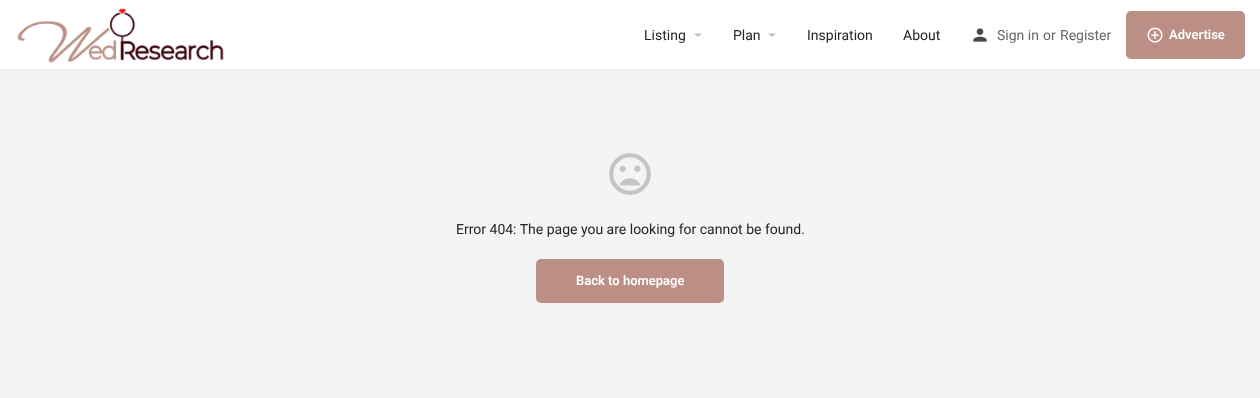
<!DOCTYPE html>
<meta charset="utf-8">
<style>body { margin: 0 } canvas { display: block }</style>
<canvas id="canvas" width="1260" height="398"></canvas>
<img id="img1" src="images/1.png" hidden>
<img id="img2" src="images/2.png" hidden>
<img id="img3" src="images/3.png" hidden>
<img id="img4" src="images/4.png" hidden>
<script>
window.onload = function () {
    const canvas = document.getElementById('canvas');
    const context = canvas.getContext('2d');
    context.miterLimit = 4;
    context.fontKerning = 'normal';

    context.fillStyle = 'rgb(244, 244, 244)';
    context.fillRect(0, 0, 1260, 398);
    context.fillStyle = 'rgb(255, 255, 255)';
    context.fillRect(0, 0, 1260, 69);
    context.fillStyle = 'rgb(235, 235, 235)';
    context.fillRect(0, 69, 1260, 1);
    context.drawImage(document.getElementById('img1'), 17, 8, 207, 55);
    context.fillStyle = 'rgb(189, 189, 191)';
    context.beginPath();
    context.moveTo(694, 33.5);
    context.lineTo(702, 33.5);
    context.lineTo(698, 37);
    context.closePath();
    context.fill();
    context.beginPath();
    context.moveTo(768, 33.5);
    context.lineTo(776, 33.5);
    context.lineTo(772, 37);
    context.closePath();
    context.fill();
    context.drawImage(document.getElementById('img2'), 973, 28, 14, 14);
    context.fillStyle = 'rgb(187, 143, 133)';
    context.beginPath();
    context.roundRect(1126, 11, 119, 48, 5);
    context.fill();
    context.drawImage(document.getElementById('img3'), 1147, 27, 16, 16);
    context.drawImage(document.getElementById('img4'), 609, 153, 42, 42);
    context.beginPath();
    context.roundRect(536, 259, 188, 44, 5);
    context.fill();
    context.font = '14px Roboto';
    context.fillStyle = 'rgb(36, 36, 41)';
    context.fillText('Listing', 644, 40);
    context.fillText('Plan', 733, 40);
    context.fillText('Inspiration', 807, 40);
    context.fillText('About', 903, 40);
    context.fillStyle = 'rgb(102, 102, 105)';
    context.fillText('Sign in', 997, 40);
    context.fillText('or', 1043, 40);
    context.fillText('Register', 1060, 40);
    context.font = '600 13px Roboto';
    context.fillStyle = 'rgb(255, 255, 255)';
    context.fillText('Advertise', 1169, 39);
    context.font = '14px Roboto';
    context.fillStyle = 'rgb(36, 36, 41)';
    context.fillText('Error 404: The page you are looking for cannot be found.', 456, 234);
    context.font = '600 13px Roboto';
    context.fillStyle = 'rgb(255, 255, 255)';
    context.fillText('Back to homepage', 576, 285);
};
</script>
